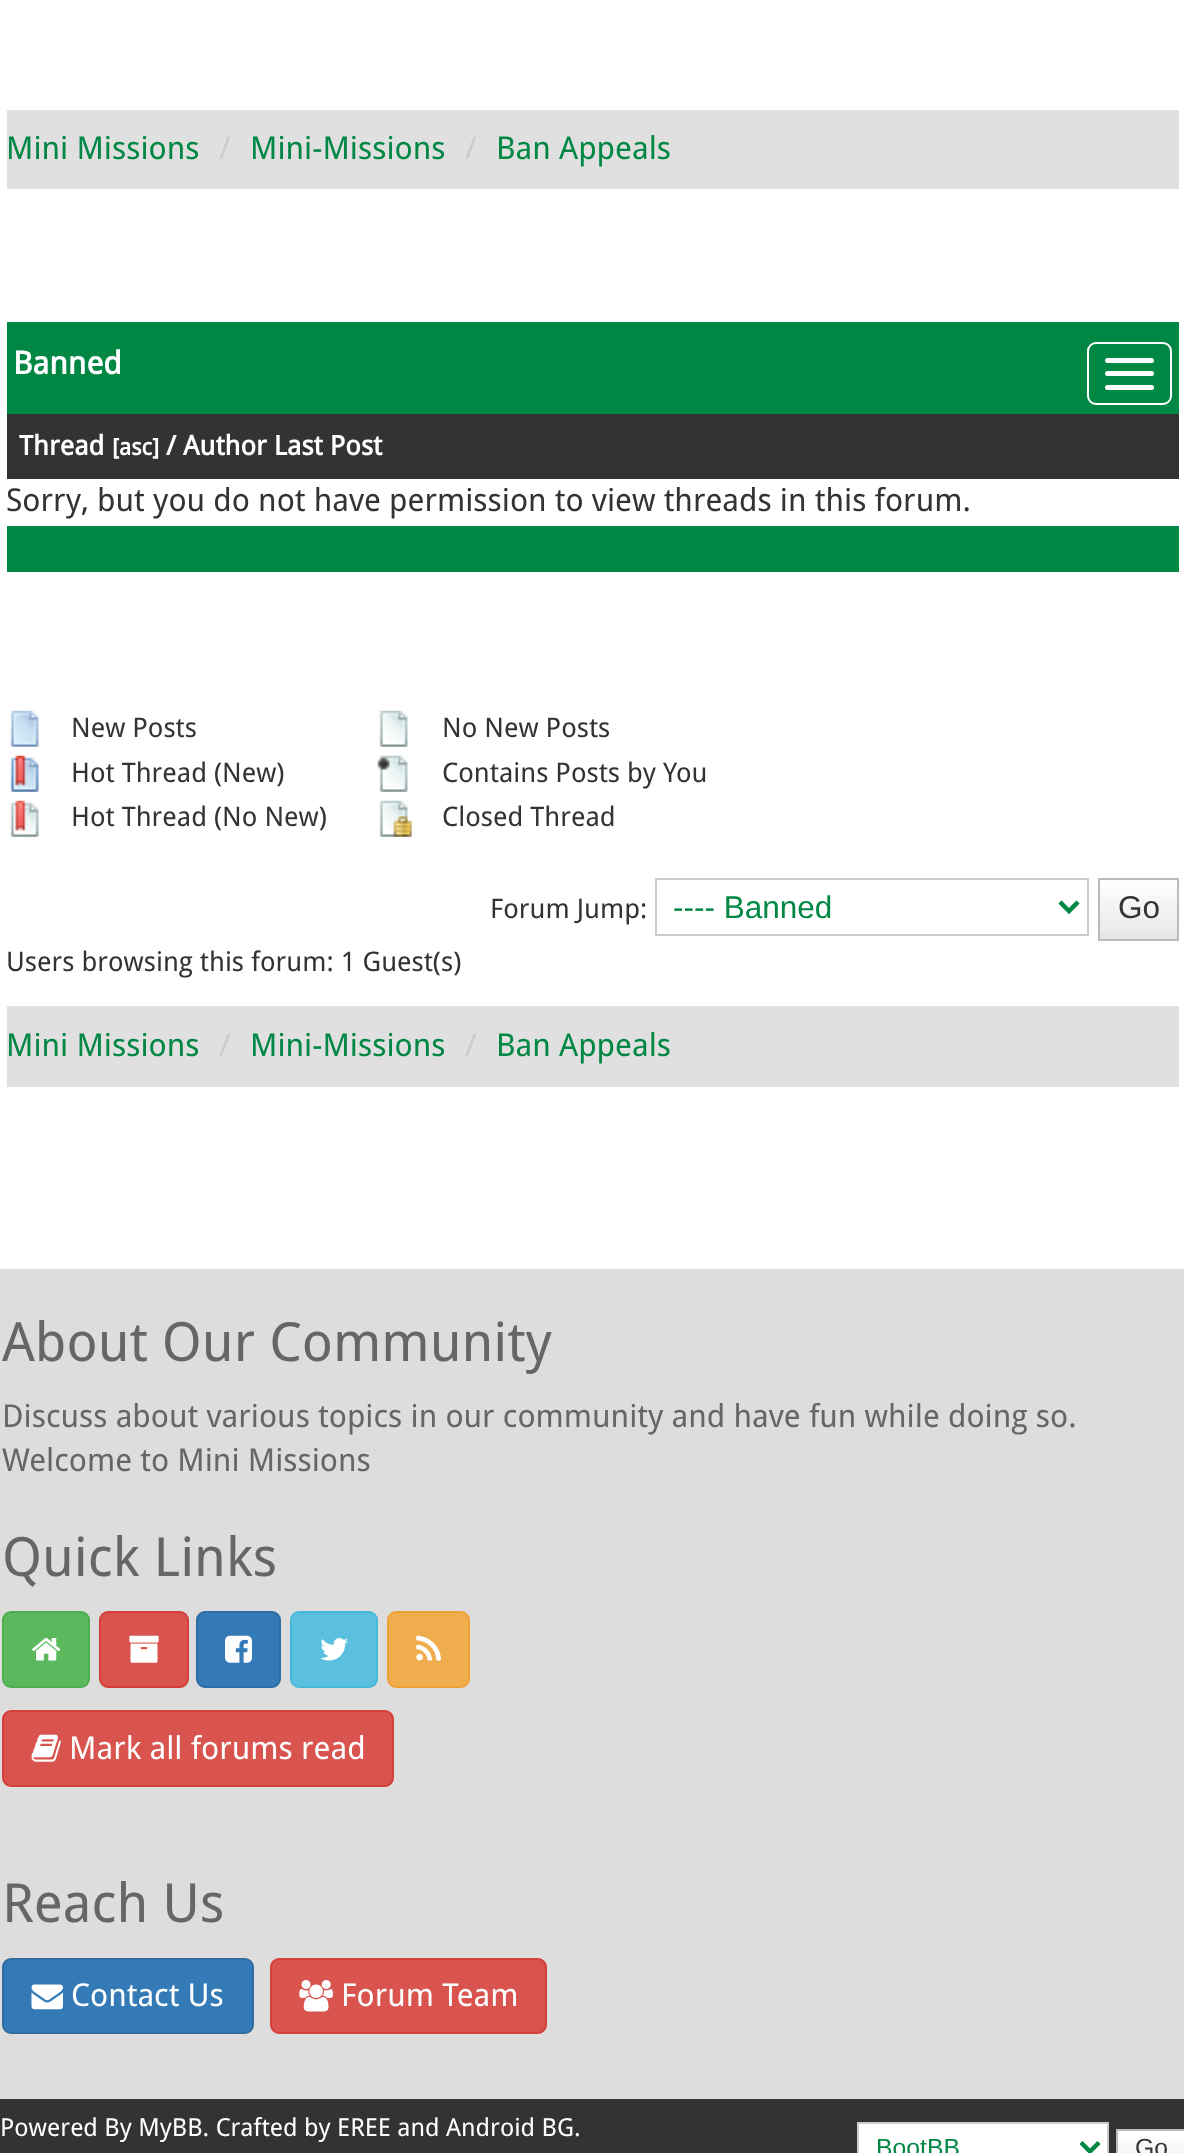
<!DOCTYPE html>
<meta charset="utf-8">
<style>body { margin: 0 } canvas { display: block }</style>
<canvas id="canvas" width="1184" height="2153"></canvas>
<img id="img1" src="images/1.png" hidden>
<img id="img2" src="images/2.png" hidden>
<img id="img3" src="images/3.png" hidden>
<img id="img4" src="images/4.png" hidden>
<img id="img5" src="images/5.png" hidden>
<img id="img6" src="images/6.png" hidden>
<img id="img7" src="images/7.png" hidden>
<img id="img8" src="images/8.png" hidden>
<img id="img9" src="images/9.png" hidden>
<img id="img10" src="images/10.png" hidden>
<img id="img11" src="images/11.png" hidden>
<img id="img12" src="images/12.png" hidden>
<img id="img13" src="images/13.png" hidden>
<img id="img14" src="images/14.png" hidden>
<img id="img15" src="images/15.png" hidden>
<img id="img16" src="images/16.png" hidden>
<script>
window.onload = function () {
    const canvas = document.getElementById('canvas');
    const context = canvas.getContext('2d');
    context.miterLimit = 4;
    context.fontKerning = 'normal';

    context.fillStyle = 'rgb(255, 255, 255)';
    context.fillRect(0, 0, 1184, 2153);
    context.fillStyle = 'rgb(224, 224, 224)';
    context.fillRect(7, 110, 1172, 79);
    context.fillStyle = 'rgb(0, 135, 68)';
    context.fillRect(7, 322, 1172, 92);
    context.beginPath();
    context.roundRect(1088, 343, 83, 61, 8);
    context.strokeStyle = 'rgb(255, 255, 255)';
    context.lineWidth = 2;
    context.stroke();
    context.fillStyle = 'rgb(255, 255, 255)';
    context.beginPath();
    context.roundRect(1105, 358, 49, 5, 2.5);
    context.fill();
    context.beginPath();
    context.roundRect(1105, 371, 49, 5, 2.5);
    context.fill();
    context.beginPath();
    context.roundRect(1105, 385, 49, 5, 2.5);
    context.fill();
    context.fillStyle = 'rgb(51, 51, 51)';
    context.fillRect(7, 414, 1172, 65);
    context.fillStyle = 'rgb(0, 135, 68)';
    context.fillRect(7, 526, 1172, 46);
    context.drawImage(document.getElementById('img1'), 10, 710, 29, 37);
    context.drawImage(document.getElementById('img2'), 10, 755, 29, 37);
    context.drawImage(document.getElementById('img3'), 10, 800, 29, 37);
    context.drawImage(document.getElementById('img4'), 379, 710, 29, 37);
    context.drawImage(document.getElementById('img5'), 377, 755, 31, 37);
    context.drawImage(document.getElementById('img6'), 379, 800, 33, 37);
    context.strokeStyle = 'rgb(204, 204, 204)';
    context.strokeRect(656, 879, 432, 56);
    context.beginPath();
    context.moveTo(1060, 902);
    context.lineTo(1069, 911);
    context.lineTo(1078, 902);
    context.strokeStyle = 'rgb(0, 135, 68)';
    context.lineWidth = 4.5;
    context.stroke();
    context.drawImage(document.getElementById('img7'), 1100, 880, 77, 59);
    context.strokeStyle = 'rgb(187, 187, 187)';
    context.lineWidth = 2;
    context.strokeRect(1099, 879, 79, 61);
    context.fillStyle = 'rgb(224, 224, 224)';
    context.fillRect(7, 1006, 1172, 81);
    context.fillStyle = 'rgb(221, 221, 221)';
    context.fillRect(0, 1269, 1184, 830);
    context.fillStyle = 'rgb(92, 184, 92)';
    context.beginPath();
    context.roundRect(3, 1612, 86, 75, 8);
    context.fill();
    context.strokeStyle = 'rgb(76, 174, 76)';
    context.stroke();
    context.drawImage(document.getElementById('img8'), 32, 1638, 29, 23);
    context.fillStyle = 'rgb(217, 83, 79)';
    context.beginPath();
    context.roundRect(100, 1612, 88, 75, 8);
    context.fill();
    context.strokeStyle = 'rgb(212, 63, 58)';
    context.stroke();
    context.drawImage(document.getElementById('img9'), 129, 1635, 30, 28);
    context.fillStyle = 'rgb(51, 122, 183)';
    context.beginPath();
    context.roundRect(197, 1612, 83, 75, 8);
    context.fill();
    context.strokeStyle = 'rgb(46, 109, 164)';
    context.stroke();
    context.drawImage(document.getElementById('img10'), 225, 1635, 27, 28);
    context.fillStyle = 'rgb(91, 192, 222)';
    context.beginPath();
    context.roundRect(291, 1612, 86, 75, 8);
    context.fill();
    context.strokeStyle = 'rgb(70, 184, 218)';
    context.stroke();
    context.drawImage(document.getElementById('img11'), 320, 1638, 28, 23);
    context.fillStyle = 'rgb(240, 173, 78)';
    context.beginPath();
    context.roundRect(388, 1612, 81, 75, 8);
    context.fill();
    context.strokeStyle = 'rgb(238, 162, 54)';
    context.stroke();
    context.drawImage(document.getElementById('img12'), 416, 1635, 25, 26);
    context.fillStyle = 'rgb(217, 83, 79)';
    context.beginPath();
    context.roundRect(3, 1711, 390, 75, 8);
    context.fill();
    context.strokeStyle = 'rgb(212, 63, 58)';
    context.stroke();
    context.drawImage(document.getElementById('img13'), 31, 1734, 30, 28);
    context.fillStyle = 'rgb(51, 122, 183)';
    context.beginPath();
    context.roundRect(3, 1959, 250, 74, 8);
    context.fill();
    context.strokeStyle = 'rgb(46, 109, 164)';
    context.stroke();
    context.drawImage(document.getElementById('img14'), 31, 1984, 32, 26);
    context.fillStyle = 'rgb(217, 83, 79)';
    context.beginPath();
    context.roundRect(271, 1959, 275, 74, 8);
    context.fill();
    context.strokeStyle = 'rgb(212, 63, 58)';
    context.stroke();
    context.drawImage(document.getElementById('img15'), 299, 1980, 34, 32);
    context.fillStyle = 'rgb(51, 51, 51)';
    context.fillRect(0, 2099, 1184, 54);
    context.fillStyle = 'rgb(255, 255, 255)';
    context.beginPath();
    context.rect(858, 2123, 250, 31);
    context.fill();
    context.strokeStyle = 'rgb(204, 204, 204)';
    context.stroke();
    context.beginPath();
    context.moveTo(1081, 2142.5);
    context.lineTo(1090, 2151.5);
    context.lineTo(1099, 2142.5);
    context.strokeStyle = 'rgb(0, 135, 68)';
    context.lineWidth = 4.5;
    context.stroke();
    context.drawImage(document.getElementById('img16'), 1118, 2131, 66, 22);
    context.strokeStyle = 'rgb(187, 187, 187)';
    context.lineWidth = 2;
    context.strokeRect(1117, 2130, 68, 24);
    context.font = '31.5px Droid Sans';
    context.fillStyle = 'rgb(0, 135, 68)';
    context.fillText('Mini Missions', 6, 159);
    context.fillStyle = 'rgb(204, 204, 204)';
    context.fillText('/', 219, 159);
    context.fillStyle = 'rgb(0, 135, 68)';
    context.fillText('Mini-Missions', 250, 159);
    context.fillStyle = 'rgb(204, 204, 204)';
    context.fillText('/', 465, 159);
    context.fillStyle = 'rgb(0, 135, 68)';
    context.fillText('Ban Appeals', 496, 159);
    context.font = 'bold 31.5px Droid Sans';
    context.fillStyle = 'rgb(255, 255, 255)';
    context.fillText('Banned', 13, 374);
    context.font = 'bold 27px Droid Sans';
    context.fillText('Thread', 19, 455);
    context.font = 'bold 23px Droid Sans';
    context.fillText('[asc]', 112, 455);
    context.font = 'bold 27px Droid Sans';
    context.fillText('/ Author Last Post', 166, 455);
    context.font = '31.5px Droid Sans';
    context.fillStyle = 'rgb(51, 51, 51)';
    context.fillText('Sorry, but you do not have permission to view threads in this forum.', 6, 511);
    context.font = '27px Droid Sans';
    context.fillText('New Posts', 71, 737);
    context.fillText('Hot Thread (New)', 71, 782);
    context.fillText('Hot Thread (No New)', 71, 826);
    context.fillText('No New Posts', 442, 737);
    context.fillText('Contains Posts by You', 442, 782);
    context.fillText('Closed Thread', 442, 826);
    context.fillText('Forum Jump:', 490, 918);
    context.font = '31.5px Liberation Sans';
    context.fillStyle = 'rgb(0, 135, 68)';
    context.fillText('---- Banned', 673, 918);
    context.fillStyle = 'rgb(51, 51, 51)';
    context.fillText('Go', 1118, 918);
    context.font = '27px Droid Sans';
    context.fillText('Users browsing this forum: 1 Guest(s)', 6, 971);
    context.font = '31.5px Droid Sans';
    context.fillStyle = 'rgb(0, 135, 68)';
    context.fillText('Mini Missions', 6, 1056);
    context.fillStyle = 'rgb(204, 204, 204)';
    context.fillText('/', 219, 1056);
    context.fillStyle = 'rgb(0, 135, 68)';
    context.fillText('Mini-Missions', 250, 1056);
    context.fillStyle = 'rgb(204, 204, 204)';
    context.fillText('/', 465, 1056);
    context.fillStyle = 'rgb(0, 135, 68)';
    context.fillText('Ban Appeals', 496, 1056);
    context.font = '54px Droid Sans';
    context.fillStyle = 'rgb(102, 102, 102)';
    context.fillText('About Our Community', 2, 1361);
    context.font = '31.5px Droid Sans';
    context.fillText('Discuss about various topics in our community and have fun while doing so.', 2, 1427);
    context.fillText('Welcome to Mini Missions', 2, 1471);
    context.font = '54px Droid Sans';
    context.fillText('Quick Links', 2, 1576);
    context.font = '31.5px Droid Sans';
    context.fillStyle = 'rgb(255, 255, 255)';
    context.fillText('Mark all forums read', 69, 1759);
    context.font = '54px Droid Sans';
    context.fillStyle = 'rgb(102, 102, 102)';
    context.fillText('Reach Us', 2, 1922);
    context.font = '31.5px Droid Sans';
    context.fillStyle = 'rgb(255, 255, 255)';
    context.fillText('Contact Us', 71, 2006);
    context.fillText('Forum Team', 341, 2006);
    context.font = '24.75px Droid Sans';
    context.fillText('Powered By MyBB. Crafted by EREE and Android BG.', 0, 2136);
    context.font = '24.75px Liberation Sans';
    context.fillStyle = 'rgb(0, 135, 68)';
    context.fillText('BootBB', 876, 2156);
    context.fillStyle = 'rgb(51, 51, 51)';
    context.fillText('Go', 1135, 2156);
};
</script>
